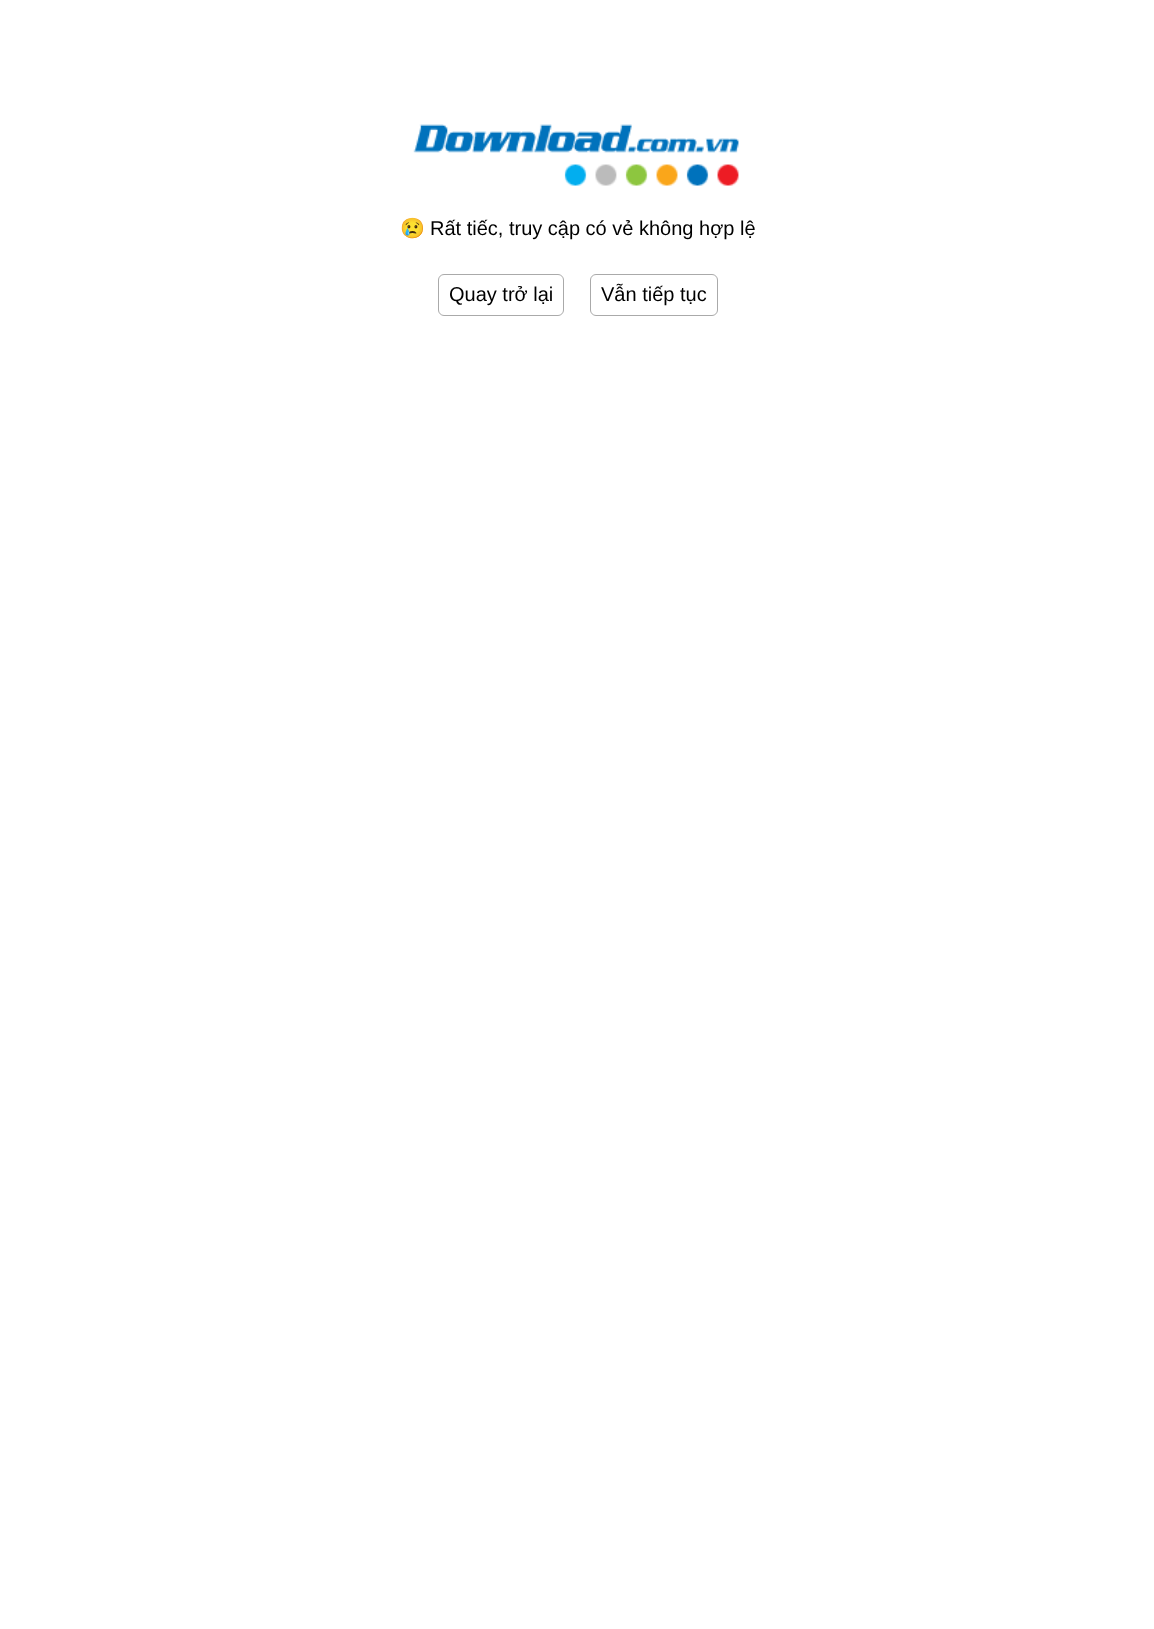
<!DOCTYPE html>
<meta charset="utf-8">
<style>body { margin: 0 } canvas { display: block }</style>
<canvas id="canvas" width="1154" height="1629"></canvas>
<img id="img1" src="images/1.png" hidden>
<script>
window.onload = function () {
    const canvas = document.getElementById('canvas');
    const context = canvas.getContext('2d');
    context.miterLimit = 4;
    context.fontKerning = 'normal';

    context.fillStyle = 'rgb(255, 255, 255)';
    context.fillRect(0, 0, 1154, 1629);
    context.drawImage(document.getElementById('img1'), 413, 124, 326, 62);
    context.beginPath();
    context.roundRect(438.5, 274.5, 125, 41, 5.5);
    context.strokeStyle = 'rgb(170, 170, 170)';
    context.stroke();
    context.beginPath();
    context.roundRect(590.5, 274.5, 127, 41, 5.5);
    context.stroke();
    context.font = '20px Noto Color Emoji';
    context.fillStyle = 'rgb(0, 0, 0)';
    context.fillText('😢', 400, 235);
    context.font = '20px Liberation Sans';
    context.fillText('Rất tiếc, truy cập có vẻ không hợp lệ', 430, 235);
    context.fillText('Quay trở lại', 449, 301);
    context.fillText('Vẫn tiếp tục', 601, 301);
};
</script>
